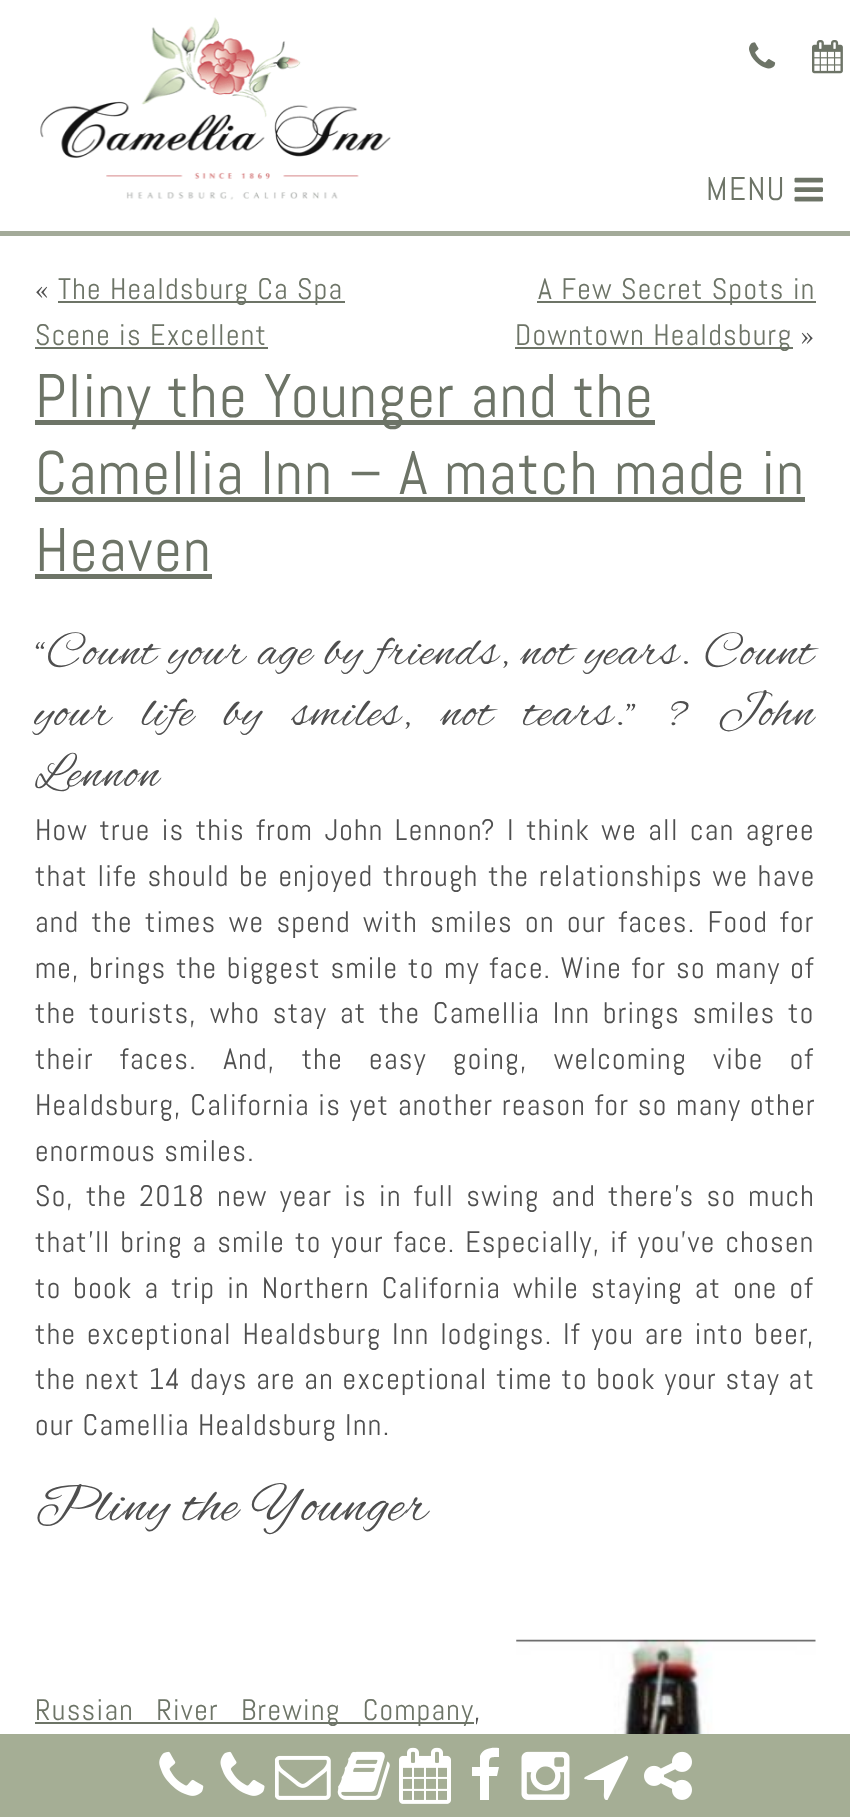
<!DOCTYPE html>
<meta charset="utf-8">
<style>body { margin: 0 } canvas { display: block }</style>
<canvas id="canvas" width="850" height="1817"></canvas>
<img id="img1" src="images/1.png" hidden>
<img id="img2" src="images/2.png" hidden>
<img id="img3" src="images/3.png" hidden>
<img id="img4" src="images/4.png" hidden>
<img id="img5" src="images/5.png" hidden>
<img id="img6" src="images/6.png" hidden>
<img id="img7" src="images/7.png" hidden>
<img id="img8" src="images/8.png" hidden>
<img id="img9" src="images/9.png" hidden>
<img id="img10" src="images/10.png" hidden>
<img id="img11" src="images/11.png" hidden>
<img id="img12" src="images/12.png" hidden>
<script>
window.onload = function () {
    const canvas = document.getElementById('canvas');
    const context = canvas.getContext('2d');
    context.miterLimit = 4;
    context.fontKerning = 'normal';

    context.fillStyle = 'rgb(255, 255, 255)';
    context.fillRect(0, 0, 850, 1817);
    context.fillStyle = 'rgb(163, 170, 153)';
    context.fillRect(0, 231, 850, 5);
    context.drawImage(document.getElementById('img1'), 40, 17, 351, 183);
    context.drawImage(document.getElementById('img2'), 749, 42, 27, 27);
    context.drawImage(document.getElementById('img3'), 812, 40, 31, 34);
    context.drawImage(document.getElementById('img4'), 794, 177, 29, 25);
    context.fillStyle = 'rgb(109, 116, 103)';
    context.fillRect(58, 301, 287, 2);
    context.fillRect(35, 347, 233, 2);
    context.fillRect(537, 301, 279, 2);
    context.fillRect(515, 347, 278, 2);
    context.fillRect(35, 420, 620, 5);
    context.fillRect(35, 497, 770, 5);
    context.fillRect(35, 574, 177, 5);
    context.fillRect(35, 1722, 439, 2);
    context.drawImage(document.getElementById('img5'), 516, 1639, 300, 95);
    context.fillStyle = 'rgb(165, 174, 149)';
    context.fillRect(0, 1734, 850, 83);
    context.drawImage(document.getElementById('img6'), 159, 1751, 45, 45);
    context.drawImage(document.getElementById('img7'), 220, 1751, 45, 45);
    context.drawImage(document.getElementById('img8'), 275, 1755, 56, 45);
    context.drawImage(document.getElementById('img9'), 337, 1751, 53, 49);
    context.drawImage(document.getElementById('img10'), 399, 1747, 52, 57);
    context.fillStyle = 'rgb(255, 255, 255)';
    context.beginPath();
    context.moveTo(499, 1748);
    context.lineTo(499, 1757);
    context.bezierCurveTo(489, 1757, 489, 1757, 489, 1767);
    context.lineTo(499, 1767);
    context.lineTo(497, 1776);
    context.lineTo(489, 1776);
    context.lineTo(489, 1800);
    context.lineTo(480, 1800);
    context.lineTo(480, 1776);
    context.lineTo(472, 1776);
    context.lineTo(472, 1767);
    context.lineTo(480, 1767);
    context.lineTo(480, 1756);
    context.bezierCurveTo(483, 1748, 492, 1747, 499, 1748);
    context.closePath();
    context.fill();
    context.drawImage(document.getElementById('img11'), 521, 1751, 49, 49);
    context.beginPath();
    context.moveTo(628, 1759);
    context.lineTo(608, 1799);
    context.bezierCurveTo(608, 1800, 607, 1800, 606, 1800);
    context.bezierCurveTo(603, 1799, 604, 1793, 604, 1792);
    context.lineTo(604, 1780);
    context.lineTo(593, 1780);
    context.bezierCurveTo(588, 1780, 582, 1780, 585, 1777);
    context.lineTo(626, 1756);
    context.bezierCurveTo(627, 1755, 629, 1757, 628, 1759);
    context.closePath();
    context.fill();
    context.drawImage(document.getElementById('img12'), 644, 1751, 48, 49);
    context.letterSpacing = '1.3px';
    context.font = '33px Abel';
    context.fillStyle = 'rgb(109, 116, 103)';
    context.fillText('MENU', 706, 200);
    context.font = '29.75px Abel';
    context.fillStyle = 'rgb(79, 79, 79)';
    context.fillText('«', 35, 299);
    context.fillStyle = 'rgb(109, 116, 103)';
    context.fillText('The Healdsburg Ca Spa', 58, 299);
    context.fillText('Scene is Excellent', 35, 345);
    context.fillText('A Few Secret Spots in', 538, 299);
    context.fillText('Downtown Healdsburg', 515, 345);
    context.fillStyle = 'rgb(79, 79, 79)';
    context.fillText('»', 800, 345);
    context.font = '61.25px Abel';
    context.fillStyle = 'rgb(109, 116, 103)';
    context.fillText('Pliny the Younger and the', 35, 417);
    context.fillText('Camellia Inn – A match made in', 35, 494);
    context.fillText('Heaven', 35, 571);
    context.wordSpacing = '0.75px';
    context.font = '49px Alex Brush';
    context.fillStyle = 'rgb(79, 79, 79)';
    context.fillText('“Count your age by friends, not years. Count', 35, 664);
    context.wordSpacing = '18.5px';
    context.fillText('your life by smiles, not tears.” ? John', 35, 725);
    context.wordSpacing = '0px';
    context.fillText('Lennon', 35, 786);
    context.wordSpacing = '3.1px';
    context.font = '29.75px Abel';
    context.fillText('How true is this from John Lennon? I think we all can agree', 35, 840);
    context.wordSpacing = '1.5px';
    context.fillText('that life should be enjoyed through the relationships we have', 35, 886);
    context.wordSpacing = '4px';
    context.fillText('and the times we spend with smiles on our faces. Food for', 35, 932);
    context.wordSpacing = '1.6px';
    context.fillText('me, brings the biggest smile to my face. Wine for so many of', 35, 978);
    context.wordSpacing = '4.5px';
    context.fillText('the tourists, who stay at the Camellia Inn brings smiles to', 35, 1023);
    context.wordSpacing = '18px';
    context.fillText('their faces. And, the easy going, welcoming vibe of', 35, 1069);
    context.wordSpacing = '0.5px';
    context.fillText('Healdsburg, California is yet another reason for so many other', 35, 1115);
    context.wordSpacing = '0px';
    context.fillText('enormous smiles.', 35, 1161);
    context.wordSpacing = '3.9px';
    context.fillText('So, the 2018 new year is in full swing and there’s so much', 35, 1206);
    context.wordSpacing = '1.75px';
    context.fillText('that’ll bring a smile to your face. Especially, if you’ve chosen', 35, 1252);
    context.wordSpacing = '3.75px';
    context.fillText('to book a trip in Northern California while staying at one of', 35, 1298);
    context.wordSpacing = '2.5px';
    context.fillText('the exceptional Healdsburg Inn lodgings. If you are into beer,', 35, 1344);
    context.wordSpacing = '0.5px';
    context.fillText('the next 14 days are an exceptional time to book your stay at', 35, 1389);
    context.wordSpacing = '0px';
    context.fillText('our Camellia Healdsburg Inn.', 35, 1435);
    context.font = '56px Alex Brush';
    context.fillText('Pliny the Younger', 35, 1520);
    context.wordSpacing = '14px';
    context.font = '29.75px Abel';
    context.fillStyle = 'rgb(109, 116, 103)';
    context.fillText('Russian River Brewing Company', 35, 1720);
    context.wordSpacing = '0px';
    context.fillStyle = 'rgb(79, 79, 79)';
    context.fillText(',', 474, 1720);
};
</script>
